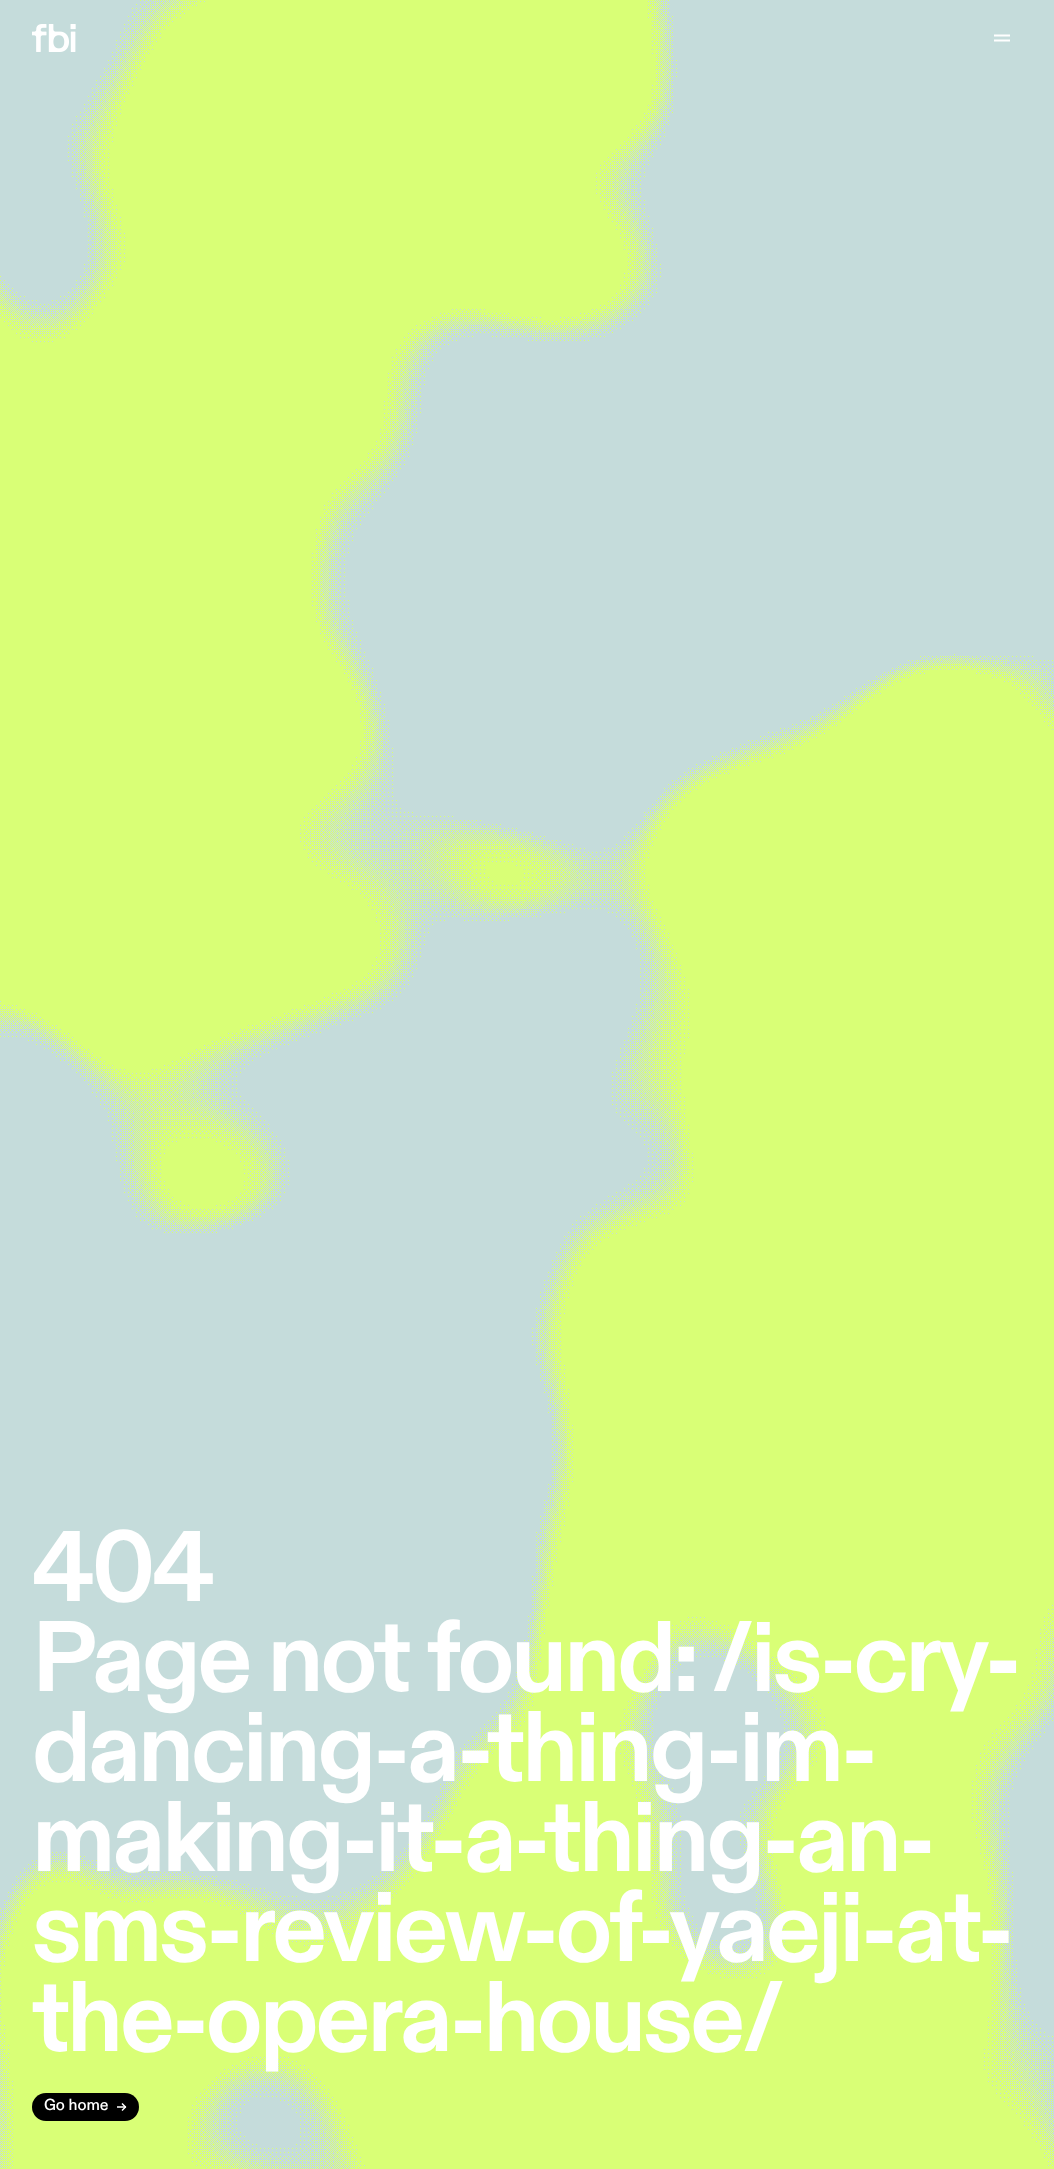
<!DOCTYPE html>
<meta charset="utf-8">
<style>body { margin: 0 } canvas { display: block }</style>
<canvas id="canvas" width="1054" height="2169"></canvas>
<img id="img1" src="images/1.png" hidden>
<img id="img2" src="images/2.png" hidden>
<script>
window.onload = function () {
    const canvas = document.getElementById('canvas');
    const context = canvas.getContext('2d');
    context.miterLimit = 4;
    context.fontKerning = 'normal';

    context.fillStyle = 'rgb(255, 255, 255)';
    context.fillRect(0, 0, 1054, 2169);
    context.drawImage(document.getElementById('img1'), 0, 0, 1054, 2169);
    context.drawImage(document.getElementById('img2'), 32, 24, 44, 28);
    context.beginPath();
    context.moveTo(994, 35.5);
    context.lineTo(1010, 35.5);
    context.moveTo(994, 40.5);
    context.lineTo(1010, 40.5);
    context.strokeStyle = 'rgb(255, 255, 255)';
    context.lineWidth = 1.8;
    context.stroke();
    context.fillStyle = 'rgb(0, 0, 0)';
    context.beginPath();
    context.roundRect(32, 2093, 107, 28, 14);
    context.fill();
    context.fillStyle = 'rgb(191, 191, 191)';
    context.fillRect(117, 2106, 9, 2);
    context.beginPath();
    context.moveTo(122, 2103.5);
    context.lineTo(125.5, 2107);
    context.lineTo(122, 2110.5);
    context.lineWidth = 1.5;
    context.lineJoin = 'round';
    context.stroke();
    context.letterSpacing = '-3px';
    context.font = 'bold 100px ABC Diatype';
    context.fillStyle = 'rgb(255, 255, 255)';
    context.fillText('404', 32, 1601);
    context.fillText('Page not found: /is-cry-', 32, 1691);
    context.fillText('dancing-a-thing-im-', 32, 1781);
    context.fillText('making-it-a-thing-an-', 32, 1871);
    context.fillText('sms-review-of-yaeji-at-', 32, 1961);
    context.fillText('the-opera-house/', 32, 2051);
    context.letterSpacing = '0px';
    context.font = '500 16px ABC Diatype';
    context.fillText('Go home', 44, 2110);
};
</script>
